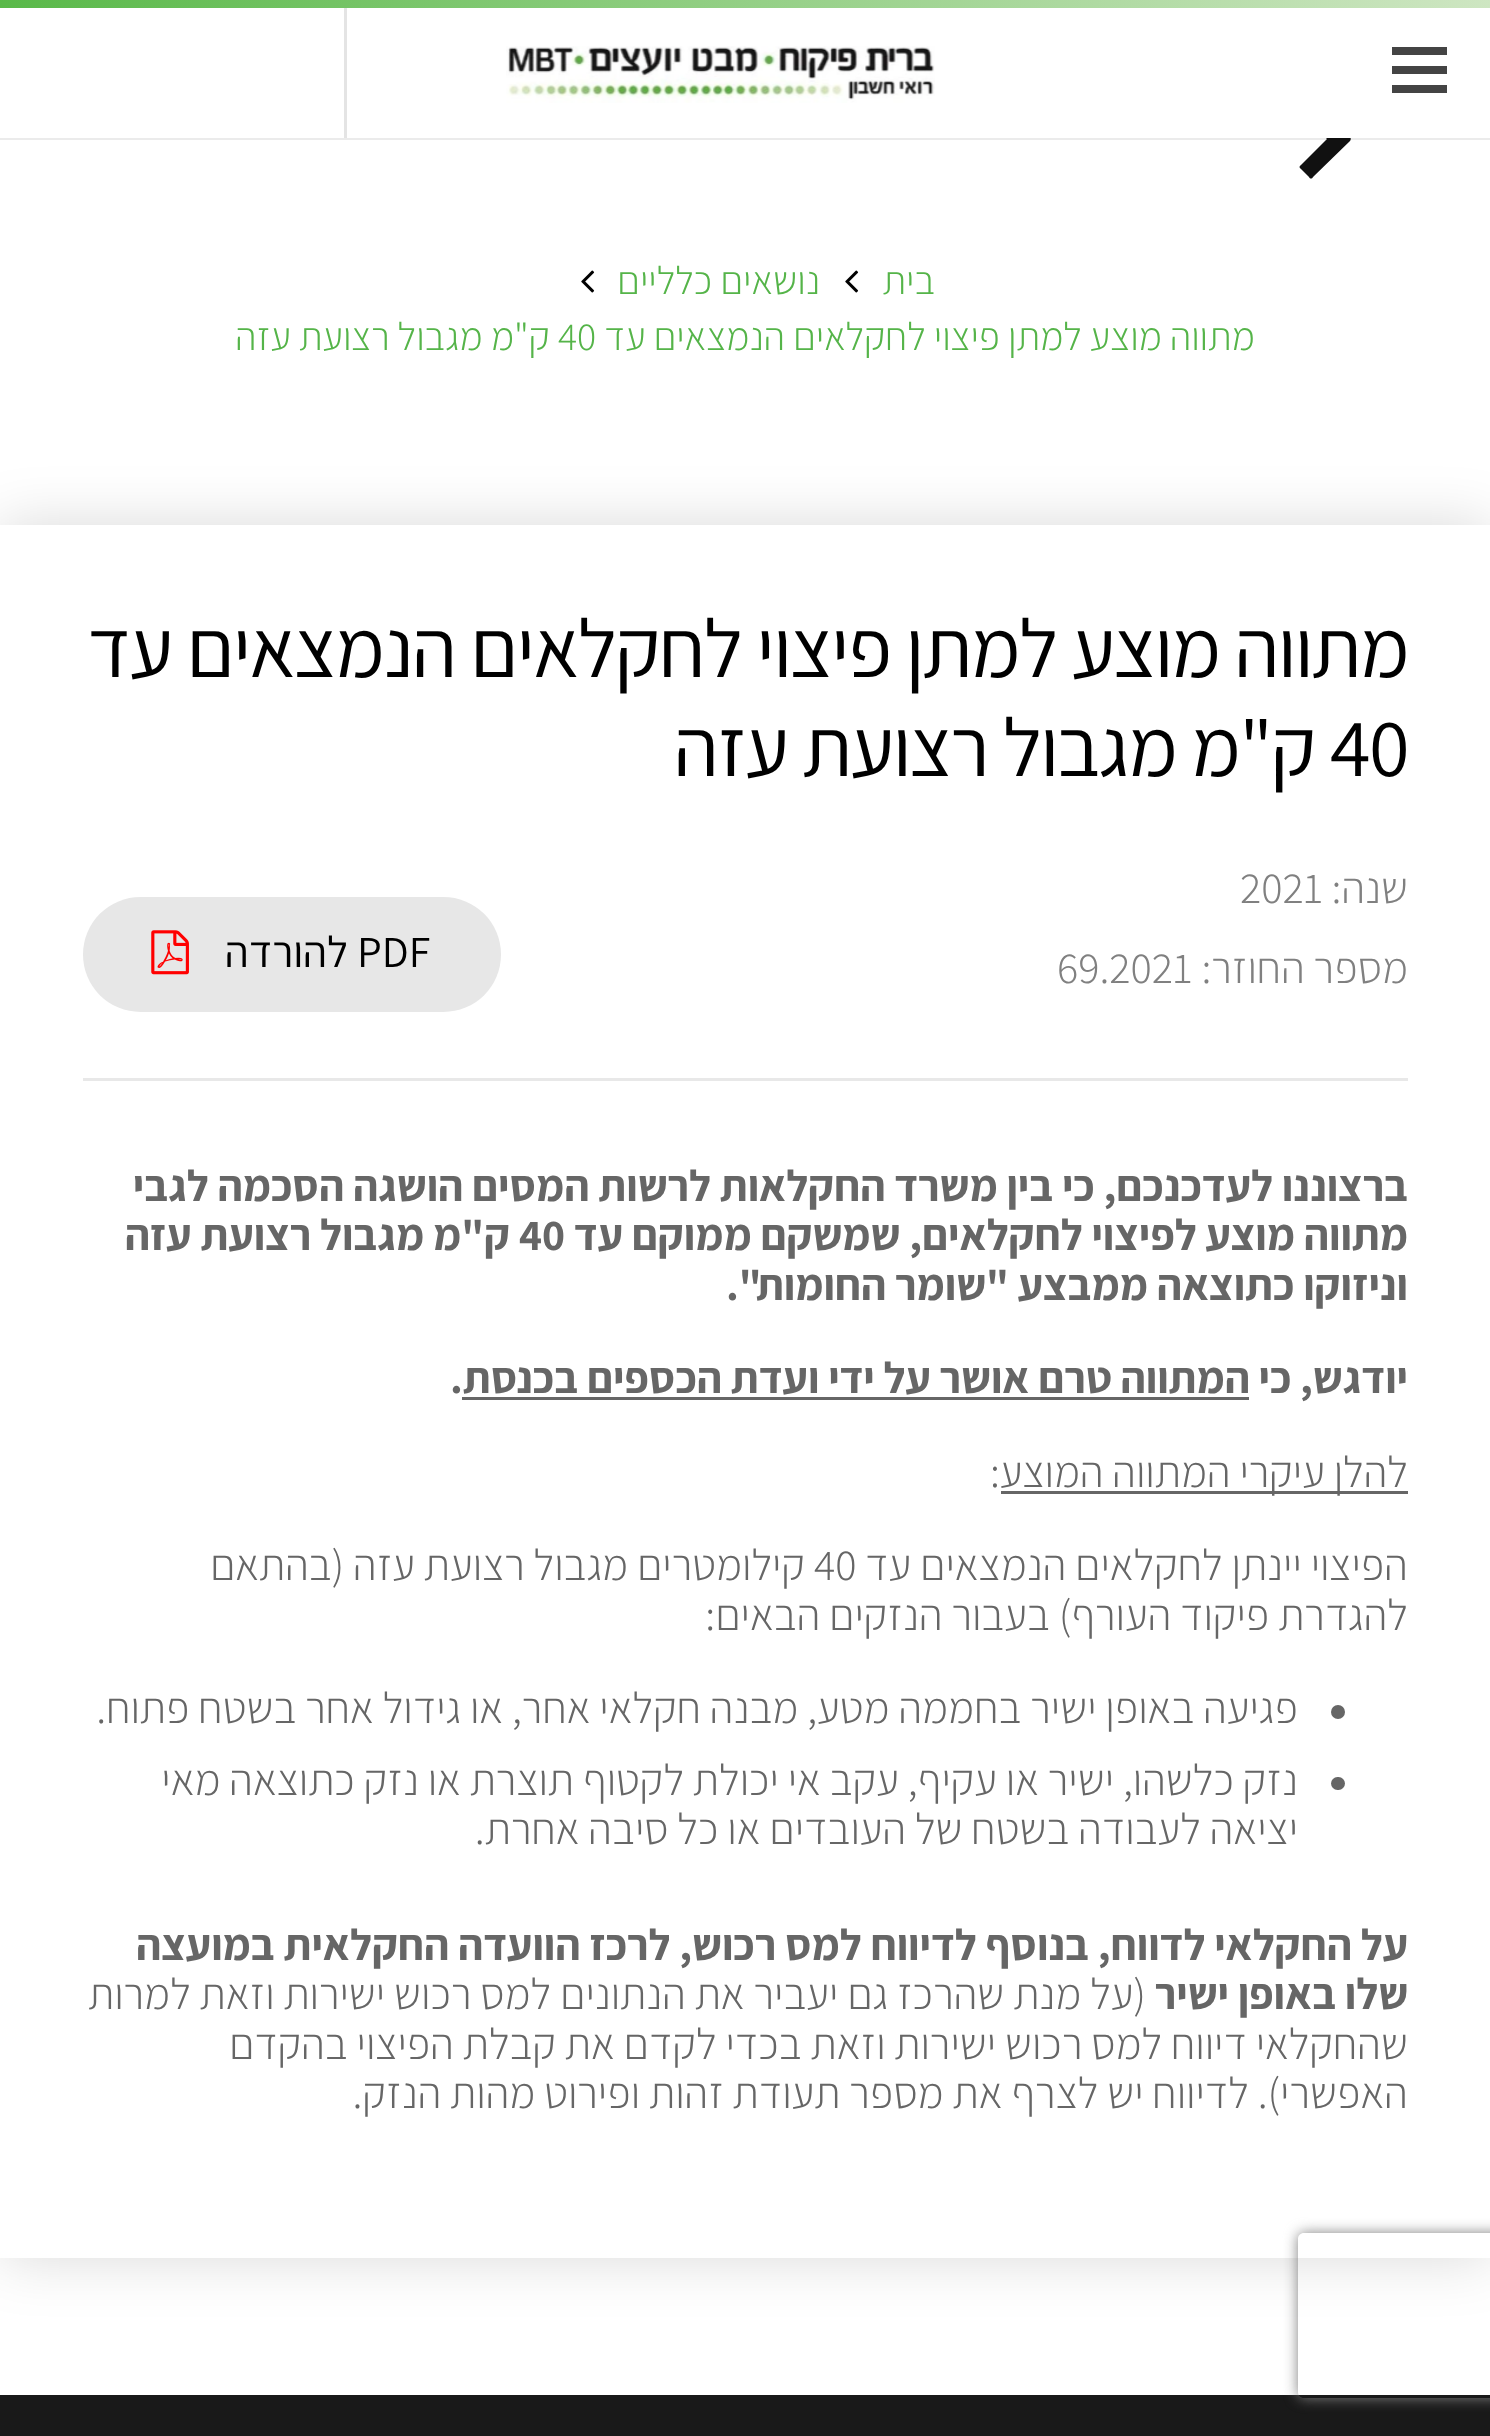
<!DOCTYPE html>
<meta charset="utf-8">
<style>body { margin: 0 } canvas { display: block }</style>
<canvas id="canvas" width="1490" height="2436"></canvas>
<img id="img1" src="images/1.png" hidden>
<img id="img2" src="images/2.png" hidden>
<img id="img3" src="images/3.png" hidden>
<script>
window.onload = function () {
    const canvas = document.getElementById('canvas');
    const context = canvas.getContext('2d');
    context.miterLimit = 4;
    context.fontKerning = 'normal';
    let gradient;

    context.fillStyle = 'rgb(255, 255, 255)';
    context.fillRect(0, 0, 1490, 2436);
    context.fillStyle = 'rgb(17, 17, 17)';
    context.beginPath();
    context.moveTo(1350, 141);
    context.bezierCurveTo(1351, 140, 1351, 138, 1350, 136);
    context.lineTo(1313, 100);
    context.bezierCurveTo(1312, 99, 1310, 99, 1309, 100);
    context.lineTo(1301, 108);
    context.bezierCurveTo(1299, 109, 1299, 111, 1301, 113);
    context.lineTo(1327, 139);
    context.lineTo(1301, 165);
    context.bezierCurveTo(1299, 166, 1299, 168, 1301, 169);
    context.lineTo(1309, 177);
    context.bezierCurveTo(1310, 179, 1312, 179, 1313, 177);
    context.closePath();
    context.fill();
    context.fillStyle = 'rgba(0, 0, 0, 0.08)';
    context.beginPath();
    context.moveTo(0, 138);
    context.lineTo(0, 140);
    context.lineTo(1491, 140);
    context.lineTo(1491, 3);
    context.lineTo(1490, 3);
    context.lineTo(1490, 138);
    context.closePath();
    context.fill();
    context.fillStyle = 'rgb(255, 255, 255)';
    context.fillRect(1299, 99, 52, 39);
    context.fillStyle = 'rgb(228, 228, 228)';
    context.fillRect(344, 0, 3, 138);
    gradient = context.createLinearGradient(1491, 4.1, 0, 4.1);
    gradient.addColorStop(0, 'rgb(206, 230, 194)');
    gradient.addColorStop(1, 'rgb(89, 185, 73)');
    context.fillStyle = gradient;
    context.fillRect(0, 0, 1490, 8);
    context.fillStyle = 'rgb(68, 68, 68)';
    context.fillRect(1392, 66, 55, 8);
    context.fillRect(1392, 47, 55, 8);
    context.fillRect(1392, 85, 55, 8);
    context.drawImage(document.getElementById('img1'), 506, 46, 429, 57);
    context.drawImage(document.getElementById('img2'), 845, 270, 14, 23);
    context.drawImage(document.getElementById('img2'), 581, 270, 14, 23);
    context.fillStyle = 'rgba(0, 0, 0, 0.15)';
    context.filter = 'blur(29px)';
    context.beginPath();
    context.rect(0, 525, 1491, 1733);
    context.fill();
    context.filter = 'none';
    context.fillStyle = 'rgb(255, 255, 255)';
    context.fillRect(0, 525, 1490, 1733);
    context.fillStyle = 'rgb(231, 231, 231)';
    context.beginPath();
    context.roundRect(83, 897, 418, 115, 57.5);
    context.fill();
    context.drawImage(document.getElementById('img3'), 151, 930, 38, 45);
    context.fillStyle = 'rgb(232, 232, 232)';
    context.fillRect(83, 1078, 1325, 3);
    context.fillStyle = 'rgb(102, 102, 102)';
    context.fillRect(462, 1397, 787, 3);
    context.fillRect(1001, 1491, 407, 3);
    context.beginPath();
    context.arc(1338, 1712, 7, 0, 2 * Math.PI);
    context.fill();
    context.beginPath();
    context.roundRect(1331, 1777, 14, 13, 6.5);
    context.fill();
    context.fillStyle = 'rgb(25, 25, 25)';
    context.fillRect(0, 2395, 1490, 41);
    context.save();
    context.beginPath();
    context.moveTo(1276, 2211);
    context.lineTo(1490, 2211);
    context.lineTo(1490, 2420);
    context.lineTo(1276, 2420);
    context.closePath();
    context.moveTo(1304, 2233);
    context.lineTo(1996, 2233);
    context.bezierCurveTo(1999.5, 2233, 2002, 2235.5, 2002, 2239);
    context.lineTo(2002, 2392);
    context.bezierCurveTo(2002, 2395.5, 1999.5, 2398, 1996, 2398);
    context.lineTo(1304, 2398);
    context.bezierCurveTo(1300.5, 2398, 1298, 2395.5, 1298, 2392);
    context.lineTo(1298, 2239);
    context.bezierCurveTo(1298, 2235.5, 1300.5, 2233, 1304, 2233);
    context.closePath();
    context.clip('evenodd');
    context.fillStyle = 'rgb(128, 128, 128)';
    context.filter = 'blur(7px)';
    context.beginPath();
    context.roundRect(1298, 2233, 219, 165, 6);
    context.fill();
    context.filter = 'none';
    context.restore();
    context.direction = 'rtl';
    context.font = '200 39.6px Assistant';
    context.fillStyle = 'rgb(85, 180, 73)';
    context.fillText('בית', 935, 294);
    context.fillText('נושאים כלליים', 820, 294);
    context.fillText('מתווה מוצע למתן פיצוי לחקלאים הנמצאים עד', 1255, 350);
    context.direction = 'ltr';
    context.fillText('40', 558, 350);
    context.direction = 'rtl';
    context.fillText('ק"מ מגבול רצועת עזה', 550, 350);
    context.letterSpacing = '-1.65px';
    context.font = '200 82.5px "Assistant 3"';
    context.fillStyle = 'rgb(0, 0, 0)';
    context.fillText('מתווה מוצע למתן פיצוי לחקלאים הנמצאים עד', 1408, 677);
    context.direction = 'ltr';
    context.fillText('40', 1330, 776);
    context.direction = 'rtl';
    context.fillText('ק"מ מגבול רצועת עזה', 1315, 776);
    context.letterSpacing = '0px';
    context.font = '200 44px Assistant';
    context.fillStyle = 'rgb(128, 128, 128)';
    context.fillText('שנה:', 1408, 903);
    context.direction = 'ltr';
    context.fillText('2021', 1240, 903);
    context.direction = 'rtl';
    context.fillText('מספר החוזר:', 1408, 983);
    context.direction = 'ltr';
    context.fillText('69.2021', 1057, 983);
    context.font = '200 44px "Assistant 3"';
    context.fillStyle = 'rgb(0, 0, 0)';
    context.fillText('PDF', 357, 967);
    context.direction = 'rtl';
    context.fillText('להורדה', 348, 967);
    context.font = '200 44px "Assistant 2"';
    context.fillStyle = 'rgb(102, 102, 102)';
    context.fillText('ברצוננו לעדכנכם, כי בין משרד החקלאות לרשות המסים הושגה הסכמה לגבי', 1408, 1201);
    context.fillText('מתווה מוצע לפיצוי לחקלאים, שמשקם ממוקם עד', 1408, 1250);
    context.direction = 'ltr';
    context.fillText('40', 519, 1250);
    context.direction = 'rtl';
    context.fillText('ק"מ מגבול רצועת עזה', 510, 1250);
    context.fillText('וניזוקו כתוצאה ממבצע "שומר החומות".', 1408, 1300);
    context.fillText('יודגש, כי', 1408, 1393);
    context.fillText('המתווה טרם אושר על ידי ועדת הכספים בכנסת', 1250, 1393);
    context.direction = 'ltr';
    context.fillText('.', 450, 1393);
    context.direction = 'rtl';
    context.font = '200 44px Assistant';
    context.fillText('להלן עיקרי המתווה המוצע', 1408, 1487);
    context.direction = 'ltr';
    context.fillText(':', 990, 1487);
    context.direction = 'rtl';
    context.fillText('הפיצוי יינתן לחקלאים הנמצאים עד', 1408, 1580);
    context.direction = 'ltr';
    context.fillText('40', 814, 1580);
    context.direction = 'rtl';
    context.fillText('קילומטרים מגבול רצועת עזה (בהתאם', 805, 1580);
    context.fillText('להגדרת פיקוד העורף) בעבור הנזקים הבאים:', 1408, 1630);
    context.fillText('פגיעה באופן ישיר בחממה מטע, מבנה חקלאי אחר, או גידול אחר בשטח פתוח.', 1298, 1723);
    context.fillText('נזק כלשהו, ישיר או עקיף, עקב אי יכולת לקטוף תוצרת או נזק כתוצאה מאי', 1298, 1795);
    context.fillText('יציאה לעבודה בשטח של העובדים או כל סיבה אחרת.', 1298, 1844);
    context.font = '200 44px "Assistant 2"';
    context.fillText('על החקלאי לדווח, בנוסף לדיווח למס רכוש, לרכז הוועדה החקלאית במועצה', 1408, 1960);
    context.fillText('שלו באופן ישיר', 1408, 2009);
    context.font = '200 44px Assistant';
    context.fillText('(על מנת שהרכז גם יעביר את הנתונים למס רכוש ישירות וזאת למרות', 1146, 2009);
    context.fillText('שהחקלאי דיווח למס רכוש ישירות וזאת בכדי לקדם את קבלת הפיצוי בהקדם', 1408, 2059);
    context.fillText('האפשרי). לדיווח יש לצרף את מספר תעודת זהות ופירוט מהות הנזק.', 1408, 2108);
};
</script>
